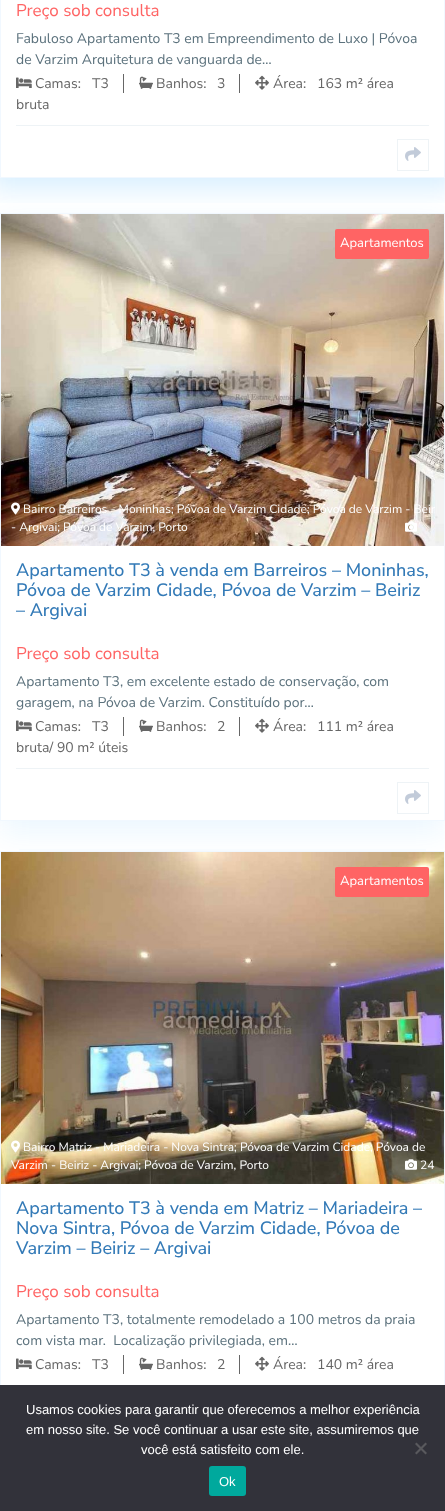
<!DOCTYPE html>
<meta charset="utf-8">
<style>body { margin: 0 } canvas { display: block }</style>
<canvas id="canvas" width="445" height="1511"></canvas>
<img id="img1" src="images/1.png" hidden>
<img id="img2" src="images/2.png" hidden>
<img id="img3" src="images/3.png" hidden>
<img id="img4" src="images/4.png" hidden>
<img id="img5" src="images/5.png" hidden>
<img id="img6" src="images/6.png" hidden>
<img id="img7" src="images/7.png" hidden>
<img id="img8" src="images/8.png" hidden>
<img id="img9" src="images/9.png" hidden>
<img id="img10" src="images/10.png" hidden>
<script>
window.onload = function () {
    const canvas = document.getElementById('canvas');
    const context = canvas.getContext('2d');
    context.miterLimit = 4;
    context.fontKerning = 'normal';

    context.fillStyle = 'rgb(255, 255, 255)';
    context.fillRect(0, 0, 445, 1511);
    context.save();
    context.beginPath();
    context.rect(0, 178, 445, 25);
    context.clip();
    context.fillStyle = 'rgba(7, 152, 255, 0.15)';
    context.filter = 'blur(11.5px)';
    context.beginPath();
    context.rect(-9, -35, 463, 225);
    context.fill();
    context.filter = 'none';
    context.restore();
    context.strokeStyle = 'rgb(241, 248, 255)';
    context.strokeRect(0.5, -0.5, 444, 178);
    context.drawImage(document.getElementById('img1'), 255, 75, 14, 15);
    context.fillStyle = 'rgb(102, 102, 102)';
    context.fillRect(123, 74, 1, 19);
    context.drawImage(document.getElementById('img2'), 16, 77, 16, 11);
    context.fillRect(239, 74, 1, 19);
    context.drawImage(document.getElementById('img3'), 139, 76, 14, 13);
    context.fillStyle = 'rgb(238, 243, 246)';
    context.fillRect(16, 125, 413, 1);
    context.strokeStyle = 'rgb(238, 243, 246)';
    context.strokeRect(397.5, 139.5, 31, 31);
    context.drawImage(document.getElementById('img4'), 405, 147, 16, 14);
    context.save();
    context.beginPath();
    context.moveTo(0, 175);
    context.lineTo(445, 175);
    context.lineTo(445, 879);
    context.lineTo(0, 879);
    context.closePath();
    context.moveTo(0, 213);
    context.lineTo(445, 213);
    context.lineTo(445, 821);
    context.lineTo(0, 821);
    context.closePath();
    context.clip('evenodd');
    context.fillStyle = 'rgba(7, 152, 255, 0.09)';
    context.filter = 'blur(15.5px)';
    context.beginPath();
    context.rect(0, 223, 445, 608);
    context.fill();
    context.filter = 'none';
    context.restore();
    context.strokeStyle = 'rgb(241, 248, 255)';
    context.strokeRect(0.5, 213.5, 444, 607);
    context.drawImage(document.getElementById('img5'), 1, 214, 443, 332);
    context.fillStyle = 'rgb(255, 100, 100)';
    context.beginPath();
    context.roundRect(335, 229, 94, 30, 2);
    context.fill();
    context.drawImage(document.getElementById('img6'), 11, 502, 9, 13);
    context.drawImage(document.getElementById('img7'), 405, 521, 12, 11);
    context.drawImage(document.getElementById('img1'), 255, 718, 14, 15);
    context.fillStyle = 'rgb(102, 102, 102)';
    context.fillRect(123, 717, 1, 19);
    context.drawImage(document.getElementById('img2'), 16, 720, 16, 11);
    context.fillRect(239, 717, 1, 19);
    context.drawImage(document.getElementById('img3'), 139, 719, 14, 13);
    context.fillStyle = 'rgb(238, 243, 246)';
    context.fillRect(16, 768, 413, 1);
    context.strokeStyle = 'rgb(238, 243, 246)';
    context.strokeRect(397.5, 782.5, 31, 31);
    context.drawImage(document.getElementById('img4'), 405, 790, 16, 14);
    context.save();
    context.beginPath();
    context.rect(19, 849, 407, 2);
    context.clip();
    context.fillStyle = 'rgba(7, 152, 255, 0.09)';
    context.filter = 'blur(15.5px)';
    context.beginPath();
    context.rect(0, 861, 445, 608);
    context.fill();
    context.filter = 'none';
    context.restore();
    context.strokeStyle = 'rgb(241, 248, 255)';
    context.strokeRect(0.5, 851.5, 444, 607);
    context.drawImage(document.getElementById('img8'), 1, 852, 443, 332);
    context.fillStyle = 'rgb(255, 100, 100)';
    context.beginPath();
    context.roundRect(335, 867, 94, 30, 2);
    context.fill();
    context.drawImage(document.getElementById('img9'), 11, 1140, 9, 13);
    context.drawImage(document.getElementById('img10'), 405, 1159, 12, 11);
    context.fillStyle = 'rgb(102, 102, 102)';
    context.fillRect(123, 1355, 1, 19);
    context.drawImage(document.getElementById('img2'), 16, 1358, 16, 11);
    context.fillRect(239, 1355, 1, 19);
    context.drawImage(document.getElementById('img3'), 139, 1357, 14, 13);
    context.drawImage(document.getElementById('img1'), 255, 1356, 14, 15);
    context.fillStyle = 'rgb(50, 50, 58)';
    context.fillRect(0, 1385, 445, 126);
    context.fillStyle = 'rgb(89, 89, 93)';
    context.beginPath();
    context.moveTo(425.5, 1442.5);
    context.lineTo(427, 1444);
    context.lineTo(416.5, 1454.5);
    context.lineTo(415, 1453);
    context.closePath();
    context.fill();
    context.beginPath();
    context.moveTo(415, 1444);
    context.lineTo(416.5, 1442.5);
    context.lineTo(427, 1453);
    context.lineTo(425.5, 1454.5);
    context.closePath();
    context.fill();
    context.fillStyle = 'rgb(0, 169, 157)';
    context.beginPath();
    context.roundRect(209, 1466, 37, 30, 3);
    context.fill();
    context.font = '17px Nunito Sans';
    context.fillStyle = 'rgb(255, 100, 100)';
    context.fillText('Preço sob consulta', 16, 16);
    context.font = '14px Nunito Sans';
    context.fillStyle = 'rgb(92, 114, 125)';
    context.fillText('Fabuloso Apartamento T3 em Empreendimento de Luxo | Póvoa', 16, 43);
    context.fillText('de Varzim Arquitetura de vanguarda de…', 16, 64);
    context.fillStyle = 'rgb(102, 102, 102)';
    context.fillText('Área:', 273, 88);
    context.fillText('163 m² área', 317, 88);
    context.fillText('bruta', 16, 109);
    context.fillText('Camas:', 35, 88);
    context.fillText('T3', 92, 88);
    context.fillText('Banhos:', 156, 88);
    context.fillText('3', 217, 88);
    context.font = '13px Nunito Sans';
    context.fillStyle = 'rgb(255, 255, 255)';
    context.fillText('Apartamentos', 340, 247);
    context.font = '12px Nunito Sans';
    context.fillText('Bairro Barreiros - Moninhas; Póvoa de Varzim Cidade; Póvoa de Varzim - Beir', 23, 513);
    context.fillText('- Argivai; Póvoa de Varzim, Porto', 11, 531);
    context.font = '500 18px Nunito Sans';
    context.fillStyle = 'rgb(51, 122, 183)';
    context.fillText('Apartamento T3 à venda em Barreiros – Moninhas,', 16, 576);
    context.fillText('Póvoa de Varzim Cidade, Póvoa de Varzim – Beiriz', 16, 596);
    context.fillText('– Argivai', 16, 616);
    context.font = '17px Nunito Sans';
    context.fillStyle = 'rgb(255, 100, 100)';
    context.fillText('Preço sob consulta', 16, 659);
    context.font = '14px Nunito Sans';
    context.fillStyle = 'rgb(92, 114, 125)';
    context.fillText('Apartamento T3, em excelente estado de conservação, com', 16, 686);
    context.fillText('garagem, na Póvoa de Varzim. Constituído por…', 16, 707);
    context.fillStyle = 'rgb(102, 102, 102)';
    context.fillText('Área:', 273, 731);
    context.fillText('111 m² área', 317, 731);
    context.fillText('bruta/ 90 m² úteis', 16, 752);
    context.fillText('Camas:', 35, 731);
    context.fillText('T3', 92, 731);
    context.fillText('Banhos:', 156, 731);
    context.fillText('2', 217, 731);
    context.font = '13px Nunito Sans';
    context.fillStyle = 'rgb(255, 255, 255)';
    context.fillText('Apartamentos', 340, 885);
    context.font = '12px Nunito Sans';
    context.fillText('Bairro Matriz - Mariadeira - Nova Sintra; Póvoa de Varzim Cidade; Póvoa de', 23, 1151);
    context.fillText('Varzim - Beiriz - Argivai; Póvoa de Varzim, Porto', 11, 1169);
    context.fillText('24', 420, 1169);
    context.font = '500 18px Nunito Sans';
    context.fillStyle = 'rgb(51, 122, 183)';
    context.fillText('Apartamento T3 à venda em Matriz – Mariadeira –', 16, 1214);
    context.fillText('Nova Sintra, Póvoa de Varzim Cidade, Póvoa de', 16, 1234);
    context.fillText('Varzim – Beiriz – Argivai', 16, 1254);
    context.font = '17px Nunito Sans';
    context.fillStyle = 'rgb(255, 100, 100)';
    context.fillText('Preço sob consulta', 16, 1297);
    context.font = '14px Nunito Sans';
    context.fillStyle = 'rgb(92, 114, 125)';
    context.fillText('Apartamento T3, totalmente remodelado a 100 metros da praia', 16, 1324);
    context.fillText('com vista mar.  Localização privilegiada, em…', 16, 1345);
    context.fillStyle = 'rgb(102, 102, 102)';
    context.fillText('Camas:', 35, 1369);
    context.fillText('T3', 92, 1369);
    context.fillText('Banhos:', 156, 1369);
    context.fillText('2', 217, 1369);
    context.fillText('Área:', 273, 1369);
    context.fillText('140 m² área', 317, 1369);
    context.font = '13px Liberation Sans';
    context.fillStyle = 'rgb(255, 255, 255)';
    context.fillText('Usamos cookies para garantir que oferecemos a melhor experiência', 26, 1414);
    context.fillText('em nosso site. Se você continuar a usar este site, assumiremos que', 26, 1434);
    context.fillText('você está satisfeito com ele.', 141, 1454);
    context.fillText('Ok', 219, 1486);
};
</script>
